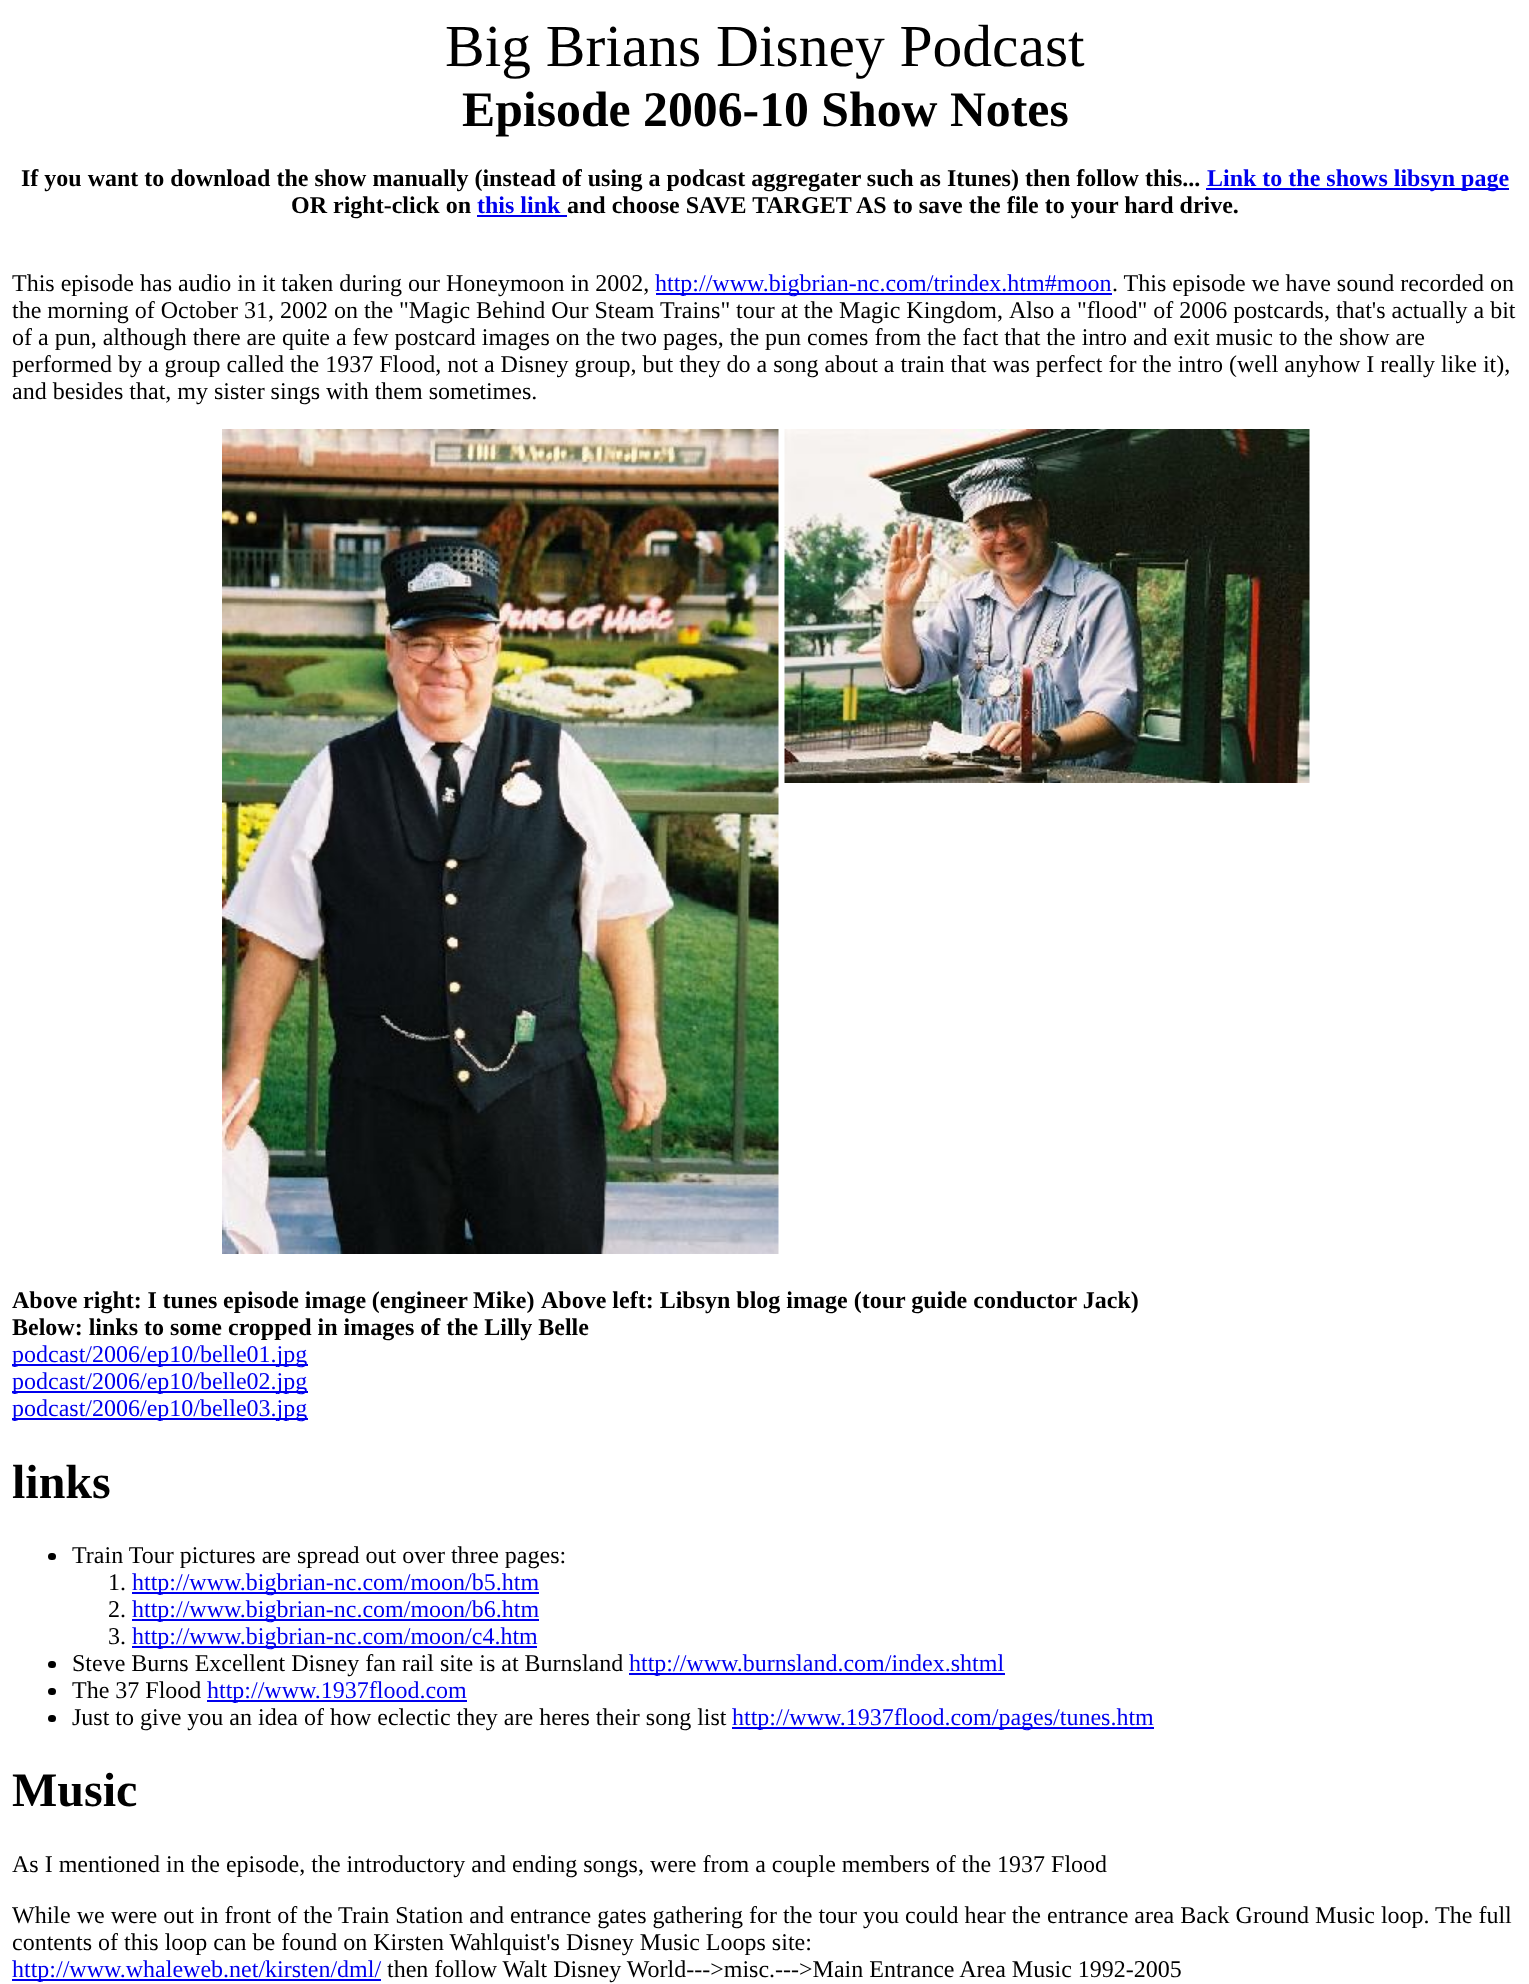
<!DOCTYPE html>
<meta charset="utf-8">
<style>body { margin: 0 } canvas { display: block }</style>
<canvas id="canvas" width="1529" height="1984"></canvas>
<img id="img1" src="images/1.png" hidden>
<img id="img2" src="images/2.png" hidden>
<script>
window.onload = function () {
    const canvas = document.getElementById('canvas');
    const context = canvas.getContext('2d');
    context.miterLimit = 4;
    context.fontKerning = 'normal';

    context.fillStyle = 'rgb(255, 255, 255)';
    context.fillRect(0, 0, 1529, 1984);
    context.fillStyle = 'rgb(0, 0, 238)';
    context.fillRect(1206, 188, 303, 2);
    context.fillRect(477, 215, 90, 2);
    context.fillRect(656, 293, 456, 2);
    context.drawImage(document.getElementById('img1'), 222, 429, 557, 825);
    context.drawImage(document.getElementById('img2'), 784, 429, 526, 354);
    context.fillRect(12, 1364, 296, 2);
    context.fillRect(12, 1391, 296, 2);
    context.fillRect(12, 1418, 296, 2);
    context.fillStyle = 'rgb(0, 0, 0)';
    context.beginPath();
    context.roundRect(48, 1553, 8, 7, 3.5);
    context.fill();
    context.fillStyle = 'rgb(0, 0, 238)';
    context.fillRect(132, 1592, 407, 2);
    context.fillRect(132, 1619, 407, 2);
    context.fillRect(132, 1646, 405, 2);
    context.fillStyle = 'rgb(0, 0, 0)';
    context.beginPath();
    context.roundRect(48, 1661, 8, 7, 3.5);
    context.fill();
    context.fillStyle = 'rgb(0, 0, 238)';
    context.fillRect(629, 1673, 376, 2);
    context.fillStyle = 'rgb(0, 0, 0)';
    context.beginPath();
    context.roundRect(48, 1688, 8, 7, 3.5);
    context.fill();
    context.fillStyle = 'rgb(0, 0, 238)';
    context.fillRect(207, 1700, 260, 2);
    context.fillStyle = 'rgb(0, 0, 0)';
    context.beginPath();
    context.roundRect(48, 1715, 8, 7, 3.5);
    context.fill();
    context.fillStyle = 'rgb(0, 0, 238)';
    context.fillRect(732, 1727, 422, 2);
    context.fillRect(12, 1979, 369, 2);
    context.font = '59.5px Liberation Serif';
    context.fillStyle = 'rgb(0, 0, 0)';
    context.fillText('Big Brians Disney Podcast', 445, 66);
    context.font = 'bold 49.75px Liberation Serif';
    context.fillText('Episode 2006-10 Show Notes', 462, 126);
    context.font = 'bold 24px Liberation Serif';
    context.fillText('If you want to download the show manually (instead of using a podcast aggregater such as Itunes) then follow this...', 21, 186);
    context.fillStyle = 'rgb(0, 0, 238)';
    context.fillText('Link to the shows libsyn page', 1207, 186);
    context.fillStyle = 'rgb(0, 0, 0)';
    context.fillText('OR right-click on', 291, 213);
    context.fillStyle = 'rgb(0, 0, 238)';
    context.fillText('this link', 477, 213);
    context.fillStyle = 'rgb(0, 0, 0)';
    context.fillText('and choose SAVE TARGET AS to save the file to your hard drive.', 567, 213);
    context.font = '24px Liberation Serif';
    context.fillText('This episode has audio in it taken during our Honeymoon in 2002,', 12, 291);
    context.fillStyle = 'rgb(0, 0, 238)';
    context.fillText('http://www.bigbrian-nc.com/trindex.htm#moon', 655, 291);
    context.fillStyle = 'rgb(0, 0, 0)';
    context.fillText('. This episode we have sound recorded on', 1112, 291);
    context.fillText('the morning of October 31, 2002 on the', 12, 318);
    context.wordSpacing = '-0.1px';
    context.fillText('"Magic Behind Our Steam Trains" tour at the Magic Kingdom,', 399, 318);
    context.wordSpacing = '0px';
    context.fillText('Also a "flood" of 2006 postcards, that\'s actually a bit', 1009, 318);
    context.fillText('of a pun, although there are quite a few postcard images on the two pages, the pun comes from the fact that the intro and exit music to the show are', 12, 345);
    context.fillText('performed by a group called the 1937 Flood, not a Disney group, but they do a song about a train that was perfect for the intro (well anyhow I really like it),', 12, 372);
    context.fillText('and besides that, my sister sings with them sometimes.', 12, 399);
    context.wordSpacing = '-0.25px';
    context.font = 'bold 24px Liberation Serif';
    context.fillText('Above right: I tunes episode image (engineer Mike)', 12, 1308);
    context.wordSpacing = '0px';
    context.fillText('Above left: Libsyn blog image (tour guide conductor Jack)', 541, 1308);
    context.fillText('Below: links to some cropped in images of the Lilly Belle', 12, 1335);
    context.font = '24px Liberation Serif';
    context.fillStyle = 'rgb(0, 0, 238)';
    context.fillText('podcast/2006/ep10/belle01.jpg', 12, 1362);
    context.fillText('podcast/2006/ep10/belle02.jpg', 12, 1389);
    context.fillText('podcast/2006/ep10/belle03.jpg', 12, 1416);
    context.font = 'bold 48px Liberation Serif';
    context.fillStyle = 'rgb(0, 0, 0)';
    context.fillText('links', 12, 1498);
    context.font = '24px Liberation Serif';
    context.fillText('Train Tour pictures are spread out over three pages:', 72, 1563);
    context.fillText('1.', 108, 1590);
    context.fillStyle = 'rgb(0, 0, 238)';
    context.fillText('http://www.bigbrian-nc.com/moon/b5.htm', 132, 1590);
    context.fillStyle = 'rgb(0, 0, 0)';
    context.fillText('2.', 108, 1617);
    context.fillStyle = 'rgb(0, 0, 238)';
    context.fillText('http://www.bigbrian-nc.com/moon/b6.htm', 132, 1617);
    context.fillStyle = 'rgb(0, 0, 0)';
    context.fillText('3.', 108, 1644);
    context.fillStyle = 'rgb(0, 0, 238)';
    context.fillText('http://www.bigbrian-nc.com/moon/c4.htm', 132, 1644);
    context.fillStyle = 'rgb(0, 0, 0)';
    context.fillText('Steve Burns Excellent Disney fan rail site is at Burnsland', 72, 1671);
    context.fillStyle = 'rgb(0, 0, 238)';
    context.fillText('http://www.burnsland.com/index.shtml', 629, 1671);
    context.fillStyle = 'rgb(0, 0, 0)';
    context.fillText('The 37 Flood', 72, 1698);
    context.fillStyle = 'rgb(0, 0, 238)';
    context.fillText('http://www.1937flood.com', 207, 1698);
    context.fillStyle = 'rgb(0, 0, 0)';
    context.fillText('Just to give you an idea of how eclectic they are heres their song list', 72, 1725);
    context.fillStyle = 'rgb(0, 0, 238)';
    context.fillText('http://www.1937flood.com/pages/tunes.htm', 732, 1725);
    context.font = 'bold 48px Liberation Serif';
    context.fillStyle = 'rgb(0, 0, 0)';
    context.fillText('Music', 12, 1806);
    context.font = '24px Liberation Serif';
    context.fillText('As I mentioned in the episode, the introductory and ending songs, were from a couple members of the 1937 Flood', 12, 1872);
    context.fillText('While we were out in front of the Train Station and entrance gates gathering for the tour you could hear the entrance area Back Ground Music loop. The full', 12, 1923);
    context.fillText('contents of this loop can be found on Kirsten Wahlquist\'s Disney Music Loops site:', 12, 1950);
    context.fillStyle = 'rgb(0, 0, 238)';
    context.fillText('http://www.whaleweb.net/kirsten/dml/', 12, 1977);
    context.fillStyle = 'rgb(0, 0, 0)';
    context.fillText('then follow Walt Disney World--->misc.--->Main Entrance Area Music 1992-2005', 387, 1977);
};
</script>
